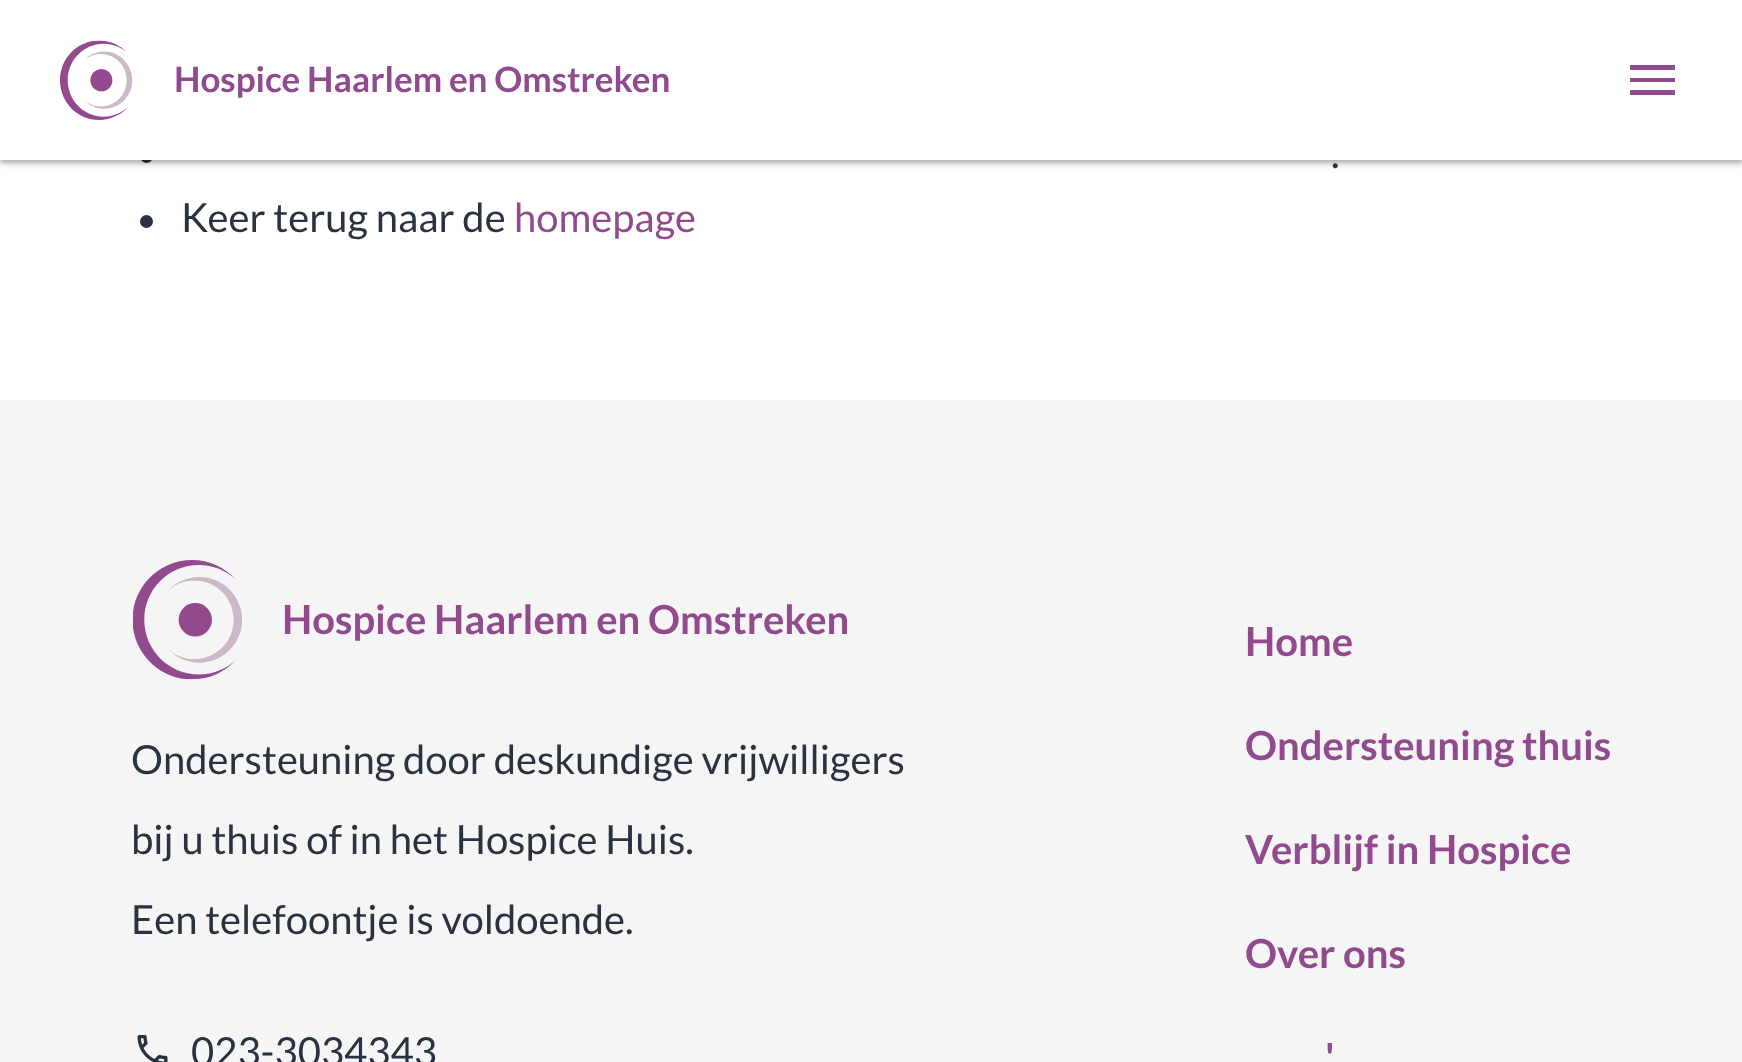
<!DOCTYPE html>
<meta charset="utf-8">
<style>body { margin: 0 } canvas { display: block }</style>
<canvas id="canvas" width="1742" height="1062"></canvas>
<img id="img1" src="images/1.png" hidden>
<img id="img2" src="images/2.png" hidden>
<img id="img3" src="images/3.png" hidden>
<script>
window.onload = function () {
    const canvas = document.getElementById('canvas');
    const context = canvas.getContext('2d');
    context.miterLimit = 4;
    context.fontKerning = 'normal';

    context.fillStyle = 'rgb(255, 255, 255)';
    context.fillRect(0, 0, 1742, 1062);
    context.fillStyle = 'rgb(41, 50, 65)';
    context.beginPath();
    context.arc(146.5, 156.5, 6.5, 0, 2 * Math.PI);
    context.fill();
    context.fillStyle = 'rgba(0, 0, 0, 0.24)';
    context.filter = 'blur(2.5px)';
    context.beginPath();
    context.rect(0, 3, 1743, 160);
    context.fill();
    context.filter = 'none';
    context.fillStyle = 'rgba(0, 0, 0, 0.12)';
    context.filter = 'blur(4px)';
    context.beginPath();
    context.rect(0, 3, 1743, 160);
    context.fill();
    context.filter = 'none';
    context.fillStyle = 'rgb(255, 255, 255)';
    context.fillRect(0, 0, 1742, 160);
    context.drawImage(document.getElementById('img1'), 60, 40, 73, 80);
    context.fillStyle = 'rgb(145, 74, 142)';
    context.beginPath();
    context.moveTo(1630, 95);
    context.lineTo(1675, 95);
    context.lineTo(1675, 90);
    context.lineTo(1630, 90);
    context.closePath();
    context.moveTo(1630, 82);
    context.lineTo(1675, 82);
    context.lineTo(1675, 78);
    context.lineTo(1630, 78);
    context.closePath();
    context.moveTo(1630, 65);
    context.lineTo(1630, 70);
    context.lineTo(1675, 70);
    context.lineTo(1675, 65);
    context.closePath();
    context.fill();
    context.fillStyle = 'rgb(41, 50, 65)';
    context.beginPath();
    context.arc(146.5, 221.5, 6.5, 0, 2 * Math.PI);
    context.fill();
    context.fillStyle = 'rgb(245, 245, 245)';
    context.fillRect(0, 400, 1742, 662);
    context.drawImage(document.getElementById('img2'), 133, 560, 109, 120);
    context.drawImage(document.getElementById('img3'), 137, 1035, 31, 27);
    context.font = 'bold 35px Lato';
    context.fillStyle = 'rgb(145, 74, 142)';
    context.fillText('Hospice Haarlem en Omstreken', 174, 92);
    context.font = '40px Lato';
    context.fillStyle = 'rgb(41, 50, 65)';
    context.fillText('.', 1331, 168);
    context.fillText('Keer terug naar de', 181, 232);
    context.fillStyle = 'rgb(145, 74, 142)';
    context.fillText('homepage', 514, 232);
    context.font = 'bold 40px Lato';
    context.fillText('Hospice Haarlem en Omstreken', 282, 634);
    context.font = '40px Lato';
    context.fillStyle = 'rgb(41, 50, 65)';
    context.fillText('Ondersteuning door deskundige vrijwilligers', 131, 774);
    context.fillText('bij u thuis of in het Hospice Huis.', 131, 854);
    context.fillText('Een telefoontje is voldoende.', 131, 934);
    context.fillText('023-3034343', 191, 1066);
    context.font = 'bold 40px Lato';
    context.fillStyle = 'rgb(145, 74, 142)';
    context.fillText('Home', 1245, 656);
    context.fillText('Ondersteuning thuis', 1245, 760);
    context.fillText('Verblijf in Hospice', 1245, 864);
    context.fillText('Over ons', 1245, 968);
    context.fillText('\'', 1325, 1072);
};
</script>
